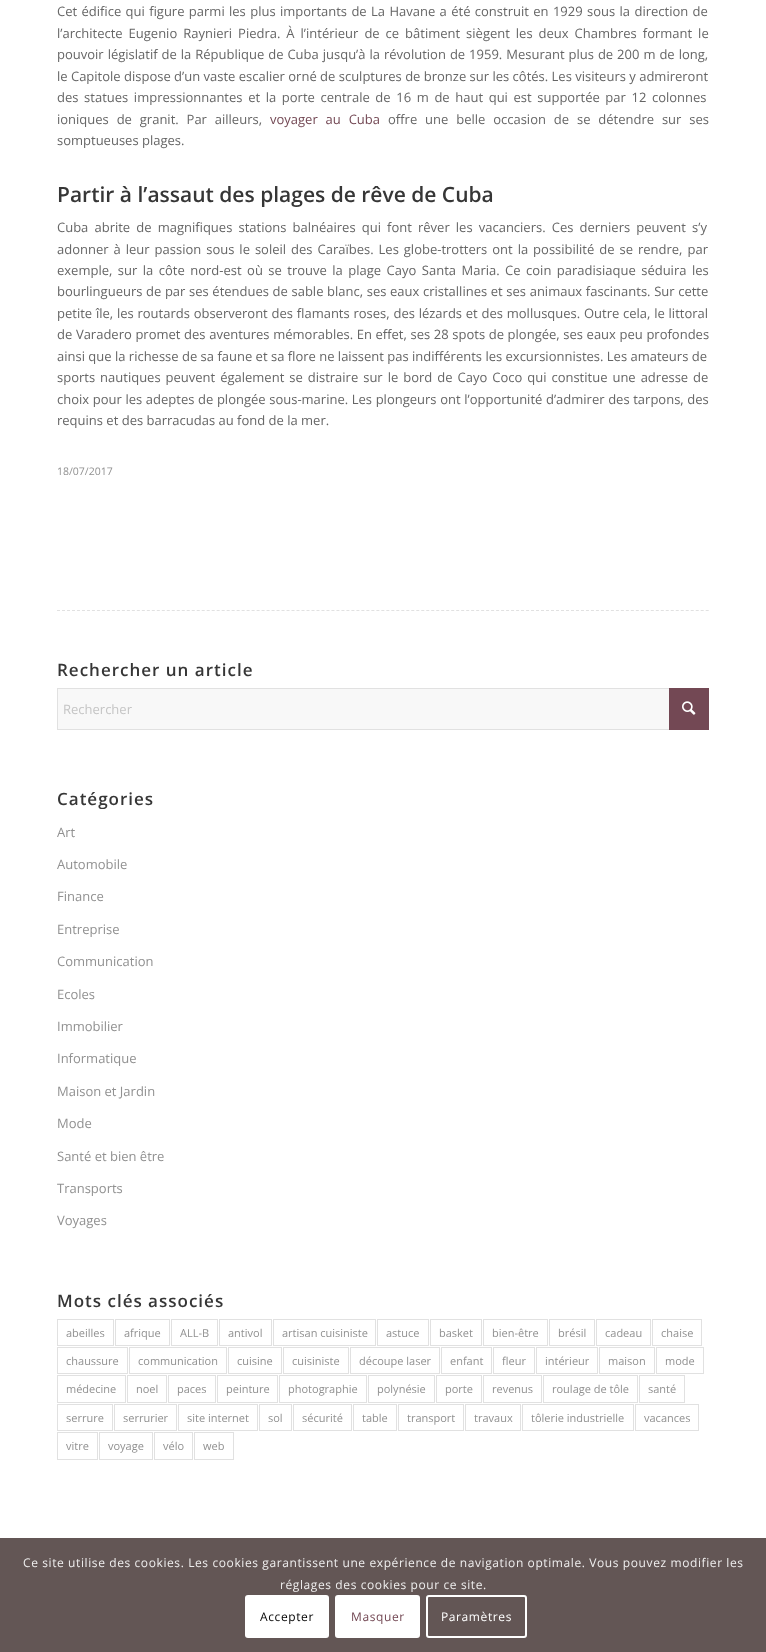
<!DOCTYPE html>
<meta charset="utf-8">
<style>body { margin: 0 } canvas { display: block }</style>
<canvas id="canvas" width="766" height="1652"></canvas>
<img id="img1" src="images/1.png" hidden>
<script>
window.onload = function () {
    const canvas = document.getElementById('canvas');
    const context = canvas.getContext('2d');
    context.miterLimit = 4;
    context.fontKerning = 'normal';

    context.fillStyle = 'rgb(255, 255, 255)';
    context.fillRect(0, 0, 766, 1652);
    context.beginPath();
    context.moveTo(57, 610.5);
    context.lineTo(709, 610.5);
    context.strokeStyle = 'rgb(225, 225, 225)';
    context.setLineDash([3, 1.99]);
    context.stroke();
    context.fillStyle = 'rgb(248, 248, 248)';
    context.fillRect(58, 689, 611, 40);
    context.setLineDash([]);
    context.strokeRect(57.5, 688.5, 651, 41);
    context.fillStyle = 'rgb(115, 72, 84)';
    context.fillRect(669, 688, 40, 42);
    context.drawImage(document.getElementById('img1'), 682, 701, 14, 14);
    context.strokeRect(57.5, 1319.5, 56, 26);
    context.strokeRect(115.5, 1319.5, 54, 26);
    context.strokeRect(171.5, 1319.5, 46, 26);
    context.strokeRect(219.5, 1319.5, 52, 26);
    context.strokeRect(273.5, 1319.5, 102, 26);
    context.strokeRect(377.5, 1319.5, 51, 26);
    context.strokeRect(430.5, 1319.5, 51, 26);
    context.strokeRect(483.5, 1319.5, 64, 26);
    context.strokeRect(549.5, 1319.5, 45, 26);
    context.strokeRect(596.5, 1319.5, 54, 26);
    context.strokeRect(652.5, 1319.5, 49, 26);
    context.strokeRect(57.5, 1347.5, 70, 26);
    context.strokeRect(129.5, 1347.5, 97, 26);
    context.strokeRect(228.5, 1347.5, 53, 26);
    context.strokeRect(283.5, 1347.5, 65, 26);
    context.strokeRect(350.5, 1347.5, 89, 26);
    context.strokeRect(441.5, 1347.5, 50, 26);
    context.strokeRect(493.5, 1347.5, 41, 26);
    context.strokeRect(536.5, 1347.5, 61, 26);
    context.strokeRect(599.5, 1347.5, 55, 26);
    context.strokeRect(656.5, 1347.5, 47, 26);
    context.strokeRect(57.5, 1375.5, 68, 27);
    context.strokeRect(127.5, 1375.5, 39, 27);
    context.strokeRect(168.5, 1375.5, 47, 27);
    context.strokeRect(217.5, 1375.5, 60, 27);
    context.strokeRect(279.5, 1375.5, 87, 27);
    context.strokeRect(368.5, 1375.5, 66, 27);
    context.strokeRect(436.5, 1375.5, 45, 27);
    context.strokeRect(483.5, 1375.5, 58, 27);
    context.strokeRect(543.5, 1375.5, 94, 27);
    context.strokeRect(639.5, 1375.5, 45, 27);
    context.strokeRect(57.5, 1404.5, 55, 26);
    context.strokeRect(114.5, 1404.5, 62, 26);
    context.strokeRect(178.5, 1404.5, 79, 26);
    context.strokeRect(259.5, 1404.5, 32, 26);
    context.strokeRect(293.5, 1404.5, 58, 26);
    context.strokeRect(353.5, 1404.5, 43, 26);
    context.strokeRect(398.5, 1404.5, 65, 26);
    context.strokeRect(465.5, 1404.5, 55, 26);
    context.strokeRect(522.5, 1404.5, 111, 26);
    context.strokeRect(635.5, 1404.5, 63, 26);
    context.strokeRect(57.5, 1432.5, 40, 27);
    context.strokeRect(99.5, 1432.5, 53, 27);
    context.strokeRect(154.5, 1432.5, 38, 27);
    context.strokeRect(194.5, 1432.5, 39, 27);
    context.fillStyle = 'rgb(99, 86, 85)';
    context.fillRect(0, 1538, 766, 114);
    context.fillStyle = 'rgb(255, 255, 255)';
    context.beginPath();
    context.roundRect(245, 1595, 84, 43, 3);
    context.fill();
    context.beginPath();
    context.roundRect(336, 1596, 83, 41, 2);
    context.fill();
    context.strokeStyle = 'rgb(255, 255, 255)';
    context.lineWidth = 2;
    context.stroke();
    context.beginPath();
    context.roundRect(427, 1596, 99, 41, 2);
    context.stroke();
    context.wordSpacing = '1px';
    context.font = '13px Open Sans';
    context.fillStyle = 'rgb(102, 102, 102)';
    context.fillText('Cet édifice qui figure parmi les plus importants de La Havane a été construit en 1929 sous la direction de', 57, 16);
    context.wordSpacing = '2.6px';
    context.fillText('l’architecte Eugenio Raynieri Piedra. À l’intérieur de ce bâtiment siègent les deux Chambres formant le', 57, 38);
    context.wordSpacing = '0.6px';
    context.fillText('pouvoir législatif de la République de Cuba jusqu’à la révolution de 1959. Mesurant plus de 200 m de long,', 57, 59);
    context.wordSpacing = '0px';
    context.fillText('le Capitole dispose d’un vaste escalier orné de sculptures de bronze sur les côtés. Les visiteurs y admireront', 57, 81);
    context.wordSpacing = '2.25px';
    context.fillText('des statues impressionnantes et la porte centrale de 16 m de haut qui est supportée par 12 colonnes', 57, 102);
    context.wordSpacing = '4.5px';
    context.fillText('ioniques de granit. Par ailleurs,', 57, 124);
    context.fillStyle = 'rgb(115, 72, 84)';
    context.fillText('voyager au Cuba', 270, 124);
    context.fillStyle = 'rgb(102, 102, 102)';
    context.fillText('offre une belle occasion de se détendre sur ses', 388, 124);
    context.wordSpacing = '0px';
    context.fillText('somptueuses plages.', 57, 145);
    context.font = '600 21px Open Sans';
    context.fillStyle = 'rgb(54, 54, 54)';
    context.fillText('Partir à l’assaut des plages de rêve de Cuba', 57, 202);
    context.wordSpacing = '2.75px';
    context.font = '13px Open Sans';
    context.fillStyle = 'rgb(102, 102, 102)';
    context.fillText('Cuba abrite de magnifiques stations balnéaires qui font rêver les vacanciers. Ces derniers peuvent s’y', 57, 232);
    context.wordSpacing = '1.6px';
    context.fillText('adonner à leur passion sous le soleil des Caraïbes. Les globe-trotters ont la possibilité de se rendre, par', 57, 254);
    context.wordSpacing = '2.1px';
    context.fillText('exemple, sur la côte nord-est où se trouve la plage Cayo Santa Maria. Ce coin paradisiaque séduira les', 57, 275);
    context.wordSpacing = '0.25px';
    context.fillText('bourlingueurs de par ses étendues de sable blanc, ses eaux cristallines et ses animaux fascinants. Sur cette', 57, 296);
    context.wordSpacing = '0.4px';
    context.fillText('petite île, les routards observeront des flamants roses, des lézards et des mollusques. Outre cela, le littoral', 57, 318);
    context.wordSpacing = '0.25px';
    context.fillText('de Varadero promet des aventures mémorables. En effet, ses 28 spots de plongée, ses eaux peu profondes', 57, 339);
    context.wordSpacing = '0px';
    context.fillText('ainsi que la richesse de sa faune et sa flore ne laissent pas indifférents les excursionnistes. Les amateurs de', 57, 361);
    context.wordSpacing = '1.6px';
    context.fillText('sports nautiques peuvent également se distraire sur le bord de Cayo Coco qui constitue une adresse de', 57, 382);
    context.wordSpacing = '0.25px';
    context.fillText('choix pour les adeptes de plongée sous-marine. Les plongeurs ont l’opportunité d’admirer des tarpons, des', 57, 404);
    context.wordSpacing = '0px';
    context.fillText('requins et des barracudas au fond de la mer.', 57, 425);
    context.font = '10.5px Open Sans';
    context.fillStyle = 'rgb(145, 145, 145)';
    context.fillText('18/07/2017', 57, 475);
    context.letterSpacing = '1px';
    context.font = '600 17px Open Sans';
    context.fillStyle = 'rgb(54, 54, 54)';
    context.fillText('Rechercher un article', 57, 676);
    context.letterSpacing = '0px';
    context.font = '13px Open Sans';
    context.fillStyle = 'rgb(197, 197, 197)';
    context.fillText('Rechercher', 63, 714);
    context.letterSpacing = '1px';
    context.font = '600 17px Open Sans';
    context.fillStyle = 'rgb(54, 54, 54)';
    context.fillText('Catégories', 57, 805);
    context.letterSpacing = '0px';
    context.font = '13px Open Sans';
    context.fillStyle = 'rgb(145, 145, 145)';
    context.fillText('Art', 57, 837);
    context.fillText('Automobile', 57, 869);
    context.fillText('Finance', 57, 901);
    context.fillText('Entreprise', 57, 934);
    context.fillText('Communication', 57, 966);
    context.fillText('Ecoles', 57, 999);
    context.fillText('Immobilier', 57, 1031);
    context.fillText('Informatique', 57, 1063);
    context.fillText('Maison et Jardin', 57, 1096);
    context.fillText('Mode', 57, 1128);
    context.fillText('Santé et bien être', 57, 1161);
    context.fillText('Transports', 57, 1193);
    context.fillText('Voyages', 57, 1225);
    context.letterSpacing = '1px';
    context.font = '600 17px Open Sans';
    context.fillStyle = 'rgb(54, 54, 54)';
    context.fillText('Mots clés associés', 57, 1307);
    context.letterSpacing = '0px';
    context.font = '11px Open Sans';
    context.fillStyle = 'rgb(145, 145, 145)';
    context.fillText('abeilles', 66, 1337);
    context.fillText('afrique', 124, 1337);
    context.fillText('ALL-B', 180, 1337);
    context.fillText('antivol', 228, 1337);
    context.fillText('artisan cuisiniste', 282, 1337);
    context.fillText('astuce', 386, 1337);
    context.fillText('basket', 439, 1337);
    context.fillText('bien-être', 492, 1337);
    context.fillText('brésil', 558, 1337);
    context.fillText('cadeau', 605, 1337);
    context.fillText('chaise', 661, 1337);
    context.fillText('chaussure', 66, 1365);
    context.fillText('communication', 138, 1365);
    context.fillText('cuisine', 237, 1365);
    context.fillText('cuisiniste', 292, 1365);
    context.fillText('découpe laser', 359, 1365);
    context.fillText('enfant', 450, 1365);
    context.fillText('fleur', 502, 1365);
    context.fillText('intérieur', 545, 1365);
    context.fillText('maison', 608, 1365);
    context.fillText('mode', 665, 1365);
    context.fillText('médecine', 66, 1393);
    context.fillText('noel', 136, 1393);
    context.fillText('paces', 177, 1393);
    context.fillText('peinture', 226, 1393);
    context.fillText('photographie', 288, 1393);
    context.fillText('polynésie', 377, 1393);
    context.fillText('porte', 445, 1393);
    context.fillText('revenus', 492, 1393);
    context.fillText('roulage de tôle', 552, 1393);
    context.fillText('santé', 648, 1393);
    context.fillText('serrure', 66, 1422);
    context.fillText('serrurier', 123, 1422);
    context.fillText('site internet', 187, 1422);
    context.fillText('sol', 268, 1422);
    context.fillText('sécurité', 302, 1422);
    context.fillText('table', 362, 1422);
    context.fillText('transport', 407, 1422);
    context.fillText('travaux', 474, 1422);
    context.fillText('tôlerie industrielle', 531, 1422);
    context.fillText('vacances', 644, 1422);
    context.fillText('vitre', 66, 1450);
    context.fillText('voyage', 108, 1450);
    context.fillText('vélo', 163, 1450);
    context.fillText('web', 203, 1450);
    context.letterSpacing = '0.6px';
    context.font = '12px Open Sans';
    context.fillStyle = 'rgb(239, 238, 238)';
    context.fillText('Ce site utilise des cookies. Les cookies garantissent une expérience de navigation optimale. Vous pouvez modifier les', 23, 1567);
    context.fillText('réglages des cookies pour ce site.', 280, 1589);
    context.fillStyle = 'rgb(0, 0, 0)';
    context.fillText('Accepter', 260, 1621);
    context.fillStyle = 'rgb(115, 72, 84)';
    context.fillText('Masquer', 351, 1621);
    context.fillStyle = 'rgb(255, 255, 255)';
    context.fillText('Paramètres', 441, 1621);
};
</script>
